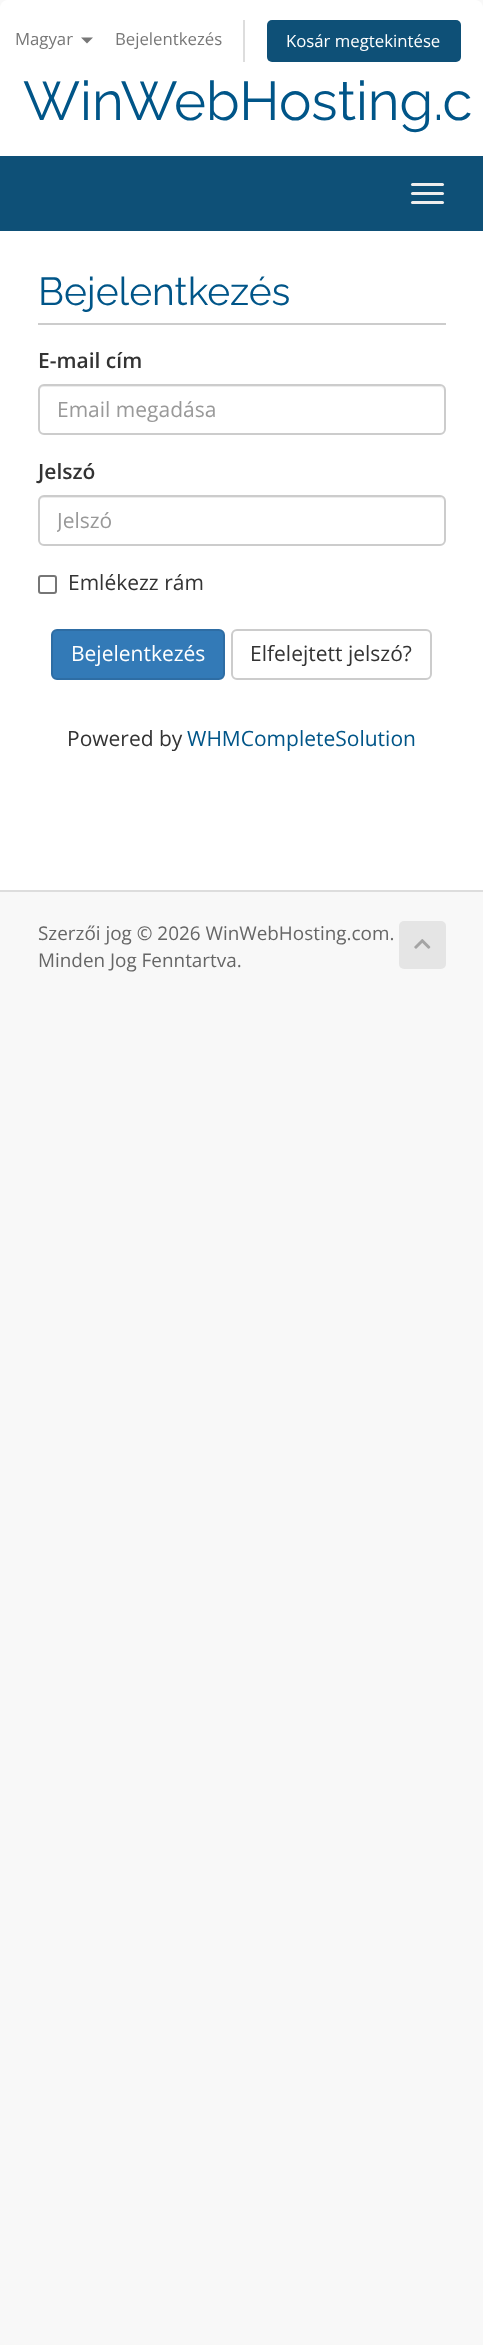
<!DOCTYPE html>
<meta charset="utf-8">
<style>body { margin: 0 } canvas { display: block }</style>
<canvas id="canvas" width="483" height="2345"></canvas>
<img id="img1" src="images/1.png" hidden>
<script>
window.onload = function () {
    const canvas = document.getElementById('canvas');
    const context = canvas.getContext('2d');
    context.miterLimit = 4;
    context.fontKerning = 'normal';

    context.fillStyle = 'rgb(248, 248, 248)';
    context.fillRect(0, 0, 483, 2345);
    context.fillStyle = 'rgb(255, 255, 255)';
    context.beginPath();
    context.roundRect(0, 0, 483, 156, [8, 8, 0, 0]);
    context.fill();
    context.fillStyle = 'rgb(119, 119, 119)';
    context.beginPath();
    context.moveTo(81, 37.5);
    context.lineTo(93, 37.5);
    context.lineTo(87, 43.5);
    context.closePath();
    context.fill();
    context.fillStyle = 'rgb(221, 221, 221)';
    context.fillRect(243, 20, 2, 42);
    context.fillStyle = 'rgb(14, 80, 119)';
    context.beginPath();
    context.roundRect(267, 20, 194, 42, 5);
    context.fill();
    context.fillRect(0, 156, 483, 75);
    context.fillStyle = 'rgb(238, 238, 238)';
    context.beginPath();
    context.roundRect(411, 183, 33, 3, 1.5);
    context.fill();
    context.beginPath();
    context.roundRect(411, 192, 33, 3, 1.5);
    context.fill();
    context.beginPath();
    context.roundRect(411, 201, 33, 3, 1.5);
    context.fill();
    context.fillStyle = 'rgb(255, 255, 255)';
    context.fillRect(0, 231, 483, 659);
    context.fillStyle = 'rgb(204, 204, 204)';
    context.fillRect(38, 323, 408, 2);
    context.fillStyle = 'rgb(236, 236, 236)';
    context.beginPath();
    context.moveTo(44, 387);
    context.lineTo(440, 387);
    context.bezierCurveTo(442, 387, 444, 389, 444, 392);
    context.lineTo(444, 391);
    context.bezierCurveTo(444, 388, 442, 386, 439, 386);
    context.lineTo(44, 386);
    context.bezierCurveTo(41, 386, 39, 388, 39, 391);
    context.lineTo(39, 392);
    context.bezierCurveTo(39, 389, 41, 387, 44, 387);
    context.closePath();
    context.fill();
    context.beginPath();
    context.roundRect(39, 385, 406, 49, 5);
    context.strokeStyle = 'rgb(204, 204, 204)';
    context.lineWidth = 2;
    context.stroke();
    context.beginPath();
    context.moveTo(44, 498);
    context.lineTo(440, 498);
    context.bezierCurveTo(442, 498, 444, 500, 444, 502);
    context.bezierCurveTo(444, 499, 442, 497, 439, 497);
    context.lineTo(44, 497);
    context.bezierCurveTo(41, 497, 39, 499, 39, 502);
    context.bezierCurveTo(39, 500, 41, 498, 44, 498);
    context.closePath();
    context.fill();
    context.beginPath();
    context.roundRect(39, 496, 406, 49, 5);
    context.stroke();
    context.beginPath();
    context.roundRect(39, 576, 17, 17, 2);
    context.strokeStyle = 'rgb(118, 118, 118)';
    context.stroke();
    context.fillStyle = 'rgb(51, 122, 183)';
    context.beginPath();
    context.roundRect(52, 630, 172, 49, 5);
    context.fill();
    context.strokeStyle = 'rgb(46, 109, 164)';
    context.stroke();
    context.beginPath();
    context.roundRect(232, 630, 199, 49, 5);
    context.strokeStyle = 'rgb(204, 204, 204)';
    context.stroke();
    context.fillStyle = 'rgb(221, 221, 221)';
    context.fillRect(0, 890, 483, 2);
    context.fillStyle = 'rgb(229, 229, 229)';
    context.beginPath();
    context.roundRect(399, 921, 47, 48, 5);
    context.fill();
    context.drawImage(document.getElementById('img1'), 414, 939, 17, 10);
    context.font = '16.75px Open Sans';
    context.fillStyle = 'rgb(119, 119, 119)';
    context.fillText('Magyar', 15, 45);
    context.fillText('Bejelentkezés', 115, 45);
    context.fillStyle = 'rgb(255, 255, 255)';
    context.fillText('Kosár megtekintése', 286, 47);
    context.font = '54.5px Raleway';
    context.fillStyle = 'rgb(0, 85, 136)';
    context.fillText('WinWebHosting.c', 23, 120);
    context.font = '39px Raleway';
    context.fillText('Bejelentkezés', 38, 305);
    context.font = '600 21px Open Sans';
    context.fillStyle = 'rgb(51, 51, 51)';
    context.fillText('E-mail cím', 38, 368);
    context.font = '21px Open Sans';
    context.fillStyle = 'rgb(153, 153, 153)';
    context.fillText('Email megadása', 57, 417);
    context.font = '600 21px Open Sans';
    context.fillStyle = 'rgb(51, 51, 51)';
    context.fillText('Jelszó', 38, 479);
    context.save();
    context.beginPath();
    context.rect(57, 506, 369, 28);
    context.clip();
    context.font = '21px Open Sans';
    context.fillStyle = 'rgb(153, 153, 153)';
    context.fillText('Jelszó', 57, 528);
    context.restore();
    context.font = '21px Open Sans';
    context.fillText('Emlékezz rám', 68, 590);
    context.fillStyle = 'rgb(255, 255, 255)';
    context.fillText('Bejelentkezés', 71, 661);
    context.fillStyle = 'rgb(51, 51, 51)';
    context.fillText('Elfelejtett jelszó?', 250, 661);
    context.fillText('Powered by', 67, 746);
    context.fillStyle = 'rgb(0, 85, 136)';
    context.fillText('WHMCompleteSolution', 187, 746);
    context.font = '18.9px Open Sans';
    context.fillStyle = 'rgb(102, 102, 102)';
    context.fillText('Szerzői jog © 2026 WinWebHosting.com.', 38, 940);
    context.fillText('Minden Jog Fenntartva.', 38, 967);
};
</script>
